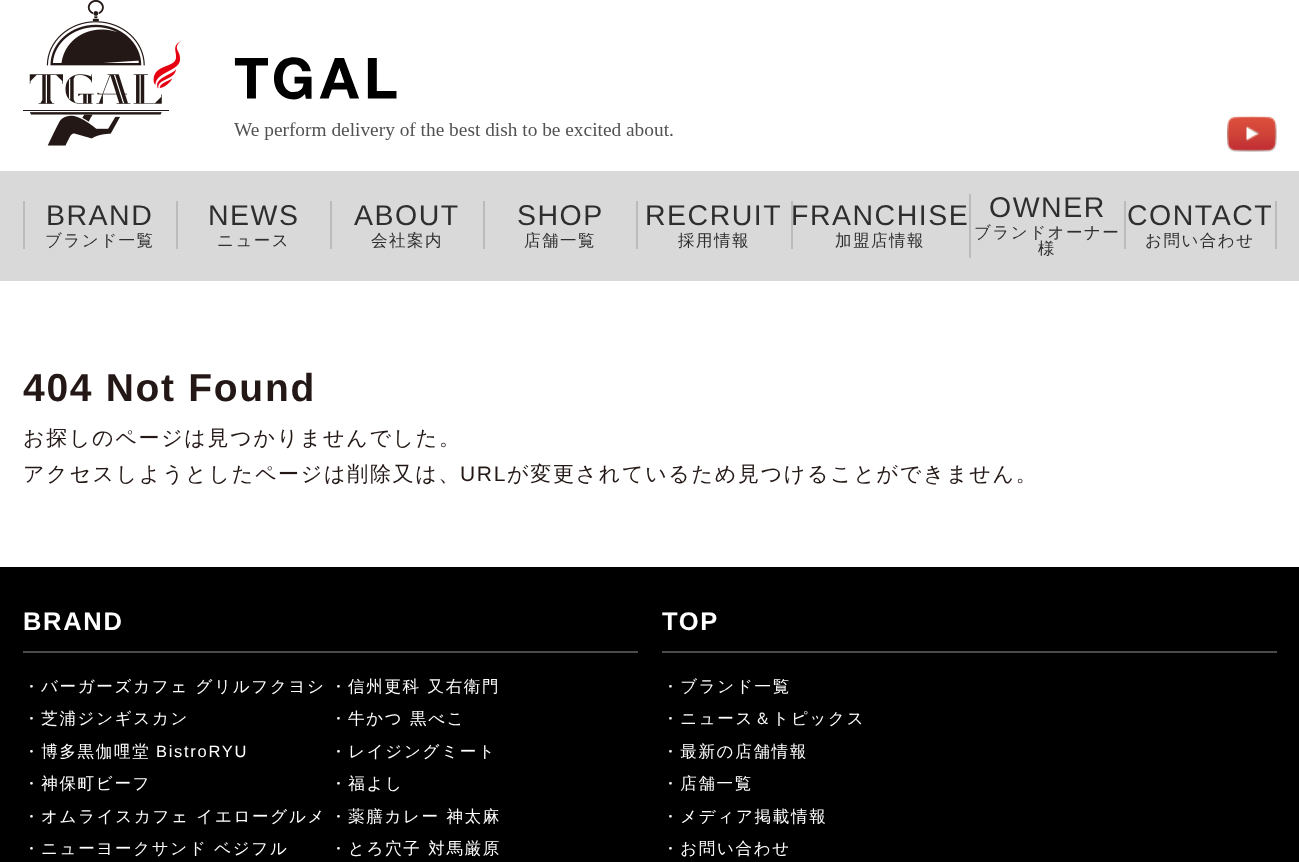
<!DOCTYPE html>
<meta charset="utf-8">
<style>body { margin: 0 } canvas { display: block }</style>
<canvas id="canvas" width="1299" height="862"></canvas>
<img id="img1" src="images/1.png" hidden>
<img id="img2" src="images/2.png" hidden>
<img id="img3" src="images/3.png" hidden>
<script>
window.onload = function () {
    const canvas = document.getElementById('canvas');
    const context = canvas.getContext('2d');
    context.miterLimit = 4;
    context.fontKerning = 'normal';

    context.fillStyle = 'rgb(255, 255, 255)';
    context.fillRect(0, 0, 1299, 862);
    context.drawImage(document.getElementById('img1'), 23, 0, 158, 146);
    context.drawImage(document.getElementById('img2'), 234, 57, 439, 83);
    context.drawImage(document.getElementById('img3'), 1227, 115, 50, 37);
    context.fillStyle = 'rgb(217, 217, 217)';
    context.fillRect(0, 171, 1299, 110);
    context.fillStyle = 'rgb(187, 187, 187)';
    context.fillRect(23, 201, 2, 48);
    context.fillRect(176, 201, 2, 48);
    context.fillRect(330, 201, 2, 48);
    context.fillRect(483, 201, 2, 48);
    context.fillRect(636, 201, 2, 48);
    context.fillRect(791, 201, 2, 48);
    context.fillRect(969, 194, 2, 64);
    context.fillRect(1275, 201, 2, 48);
    context.fillRect(1124, 201, 2, 48);
    context.fillStyle = 'rgb(0, 0, 0)';
    context.fillRect(0, 567, 1299, 295);
    context.fillStyle = 'rgb(74, 74, 74)';
    context.fillRect(23, 651, 615, 2);
    context.fillRect(662, 651, 615, 2);
    context.letterSpacing = '1.5px';
    context.font = '28.5px Liberation Sans';
    context.fillStyle = 'rgb(46, 46, 46)';
    context.fillText('BRAND', 46, 225);
    context.font = '500 16.5px WenQuanYi Zen Hei';
    context.fillText('ブランド一覧', 45, 246);
    context.font = '28.5px Liberation Sans';
    context.fillText('NEWS', 208, 225);
    context.font = '500 16.5px WenQuanYi Zen Hei';
    context.fillText('ニュース', 217, 246);
    context.font = '28.5px Liberation Sans';
    context.fillText('ABOUT', 354, 225);
    context.font = '500 16.5px WenQuanYi Zen Hei';
    context.fillText('会社案内', 371, 246);
    context.font = '28.5px Liberation Sans';
    context.fillText('SHOP', 517, 225);
    context.font = '500 16.5px WenQuanYi Zen Hei';
    context.fillText('店舗一覧', 524, 246);
    context.font = '28.5px Liberation Sans';
    context.fillText('RECRUIT', 645, 225);
    context.font = '500 16.5px WenQuanYi Zen Hei';
    context.fillText('採用情報', 678, 246);
    context.font = '28.5px Liberation Sans';
    context.fillText('FRANCHISE', 791, 225);
    context.font = '500 16.5px WenQuanYi Zen Hei';
    context.fillText('加盟店情報', 835, 246);
    context.font = '28.5px Liberation Sans';
    context.fillText('OWNER', 989, 217);
    context.font = '500 16.5px WenQuanYi Zen Hei';
    context.fillText('ブランドオーナー', 974, 238);
    context.fillText('様', 1038, 254);
    context.font = '28.5px Liberation Sans';
    context.fillText('CONTACT', 1127, 225);
    context.font = '500 16.5px WenQuanYi Zen Hei';
    context.fillText('お問い合わせ', 1145, 246);
    context.letterSpacing = '1.7px';
    context.font = 'bold 39px Liberation Sans';
    context.fillStyle = 'rgb(35, 24, 21)';
    context.fillText('404 Not Found', 23, 401);
    context.font = '500 21px WenQuanYi Zen Hei';
    context.fillText('お探しのページは見つかりませんでした。', 23, 445);
    context.fillText('アクセスしようとしたページは削除又は、', 23, 481);
    context.font = '21px Liberation Sans';
    context.fillText('URL', 460, 481);
    context.font = '500 21px WenQuanYi Zen Hei';
    context.fillText('が変更されているため見つけることができません。', 507, 481);
    context.font = 'bold 25.5px Liberation Sans';
    context.fillStyle = 'rgb(255, 255, 255)';
    context.fillText('BRAND', 23, 630);
    context.font = '500 16.5px WenQuanYi Zen Hei';
    context.fillText('・', 23, 692);
    context.fillText('バーガーズカフェ グリルフクヨシ', 41, 692);
    context.fillText('・芝浦ジンギスカン', 23, 724);
    context.fillText('・博多黒伽哩堂', 23, 757);
    context.font = '16.5px Liberation Sans';
    context.fillText('BistroRYU', 156, 757);
    context.font = '500 16.5px WenQuanYi Zen Hei';
    context.fillText('・神保町ビーフ', 23, 789);
    context.fillText('・', 23, 822);
    context.fillText('オムライスカフェ イエローグルメ', 41, 822);
    context.fillText('・', 23, 854);
    context.fillText('ニューヨークサンド ベジフル', 41, 854);
    context.fillText('・', 330, 692);
    context.fillText('信州更科 又右衛門', 348, 692);
    context.fillText('・', 330, 724);
    context.fillText('牛かつ 黒べこ', 348, 724);
    context.fillText('・レイジングミート', 330, 757);
    context.fillText('・福よし', 330, 789);
    context.fillText('・', 330, 822);
    context.fillText('薬膳カレー 神太麻', 348, 822);
    context.fillText('・', 330, 854);
    context.fillText('とろ穴子 対馬厳原', 348, 854);
    context.font = 'bold 25.5px Liberation Sans';
    context.fillText('TOP', 662, 630);
    context.font = '500 16.5px WenQuanYi Zen Hei';
    context.fillText('・ブランド一覧', 662, 692);
    context.fillText('・ニュース＆トピックス', 662, 724);
    context.fillText('・最新の店舗情報', 662, 757);
    context.fillText('・店舗一覧', 662, 789);
    context.fillText('・メディア掲載情報', 662, 822);
    context.fillText('・お問い合わせ', 662, 854);
};
</script>
